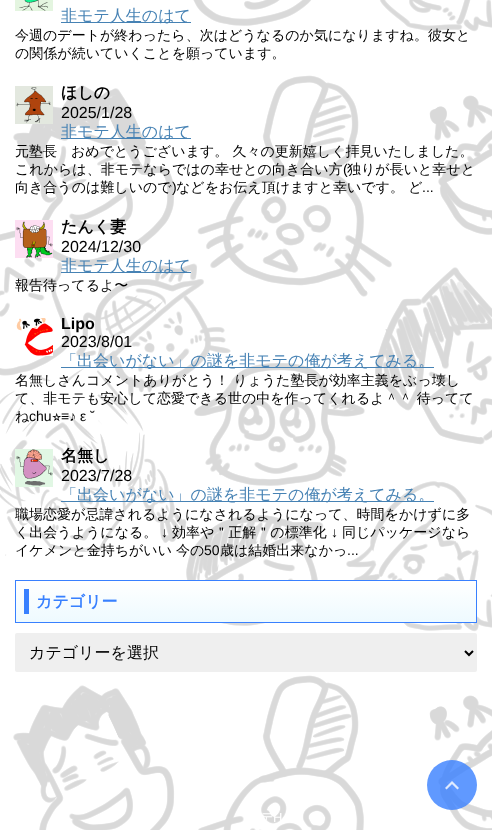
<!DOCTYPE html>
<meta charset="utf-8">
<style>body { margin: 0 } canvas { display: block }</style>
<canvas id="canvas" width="492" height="830"></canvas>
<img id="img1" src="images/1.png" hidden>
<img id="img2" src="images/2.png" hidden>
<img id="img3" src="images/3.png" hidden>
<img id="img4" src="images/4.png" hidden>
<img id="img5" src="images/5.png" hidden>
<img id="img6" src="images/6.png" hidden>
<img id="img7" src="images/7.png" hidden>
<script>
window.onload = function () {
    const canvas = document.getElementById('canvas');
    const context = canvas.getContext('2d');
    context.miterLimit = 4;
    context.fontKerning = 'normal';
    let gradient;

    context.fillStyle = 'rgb(255, 255, 255)';
    context.fillRect(0, 0, 492, 830);
    context.drawImage(document.getElementById('img1'), 0, 0, 492, 830);
    context.drawImage(document.getElementById('img2'), 15, 0, 38, 11);
    context.fillStyle = 'rgb(70, 130, 180)';
    context.fillRect(61, 22, 130, 1);
    context.drawImage(document.getElementById('img3'), 15, 86, 38, 38);
    context.fillRect(61, 138, 130, 1);
    context.fillRect(61, 272, 130, 1);
    context.drawImage(document.getElementById('img4'), 15, 220, 38, 38);
    context.fillRect(61, 367, 373, 1);
    context.drawImage(document.getElementById('img5'), 16, 318, 37, 38);
    context.fillRect(61, 501, 373, 1);
    context.drawImage(document.getElementById('img6'), 15, 449, 38, 38);
    gradient = context.createLinearGradient(246, 581, 246, 622);
    gradient.addColorStop(0, 'rgb(255, 255, 255)');
    gradient.addColorStop(1, 'rgb(238, 250, 255)');
    context.fillStyle = gradient;
    context.fillRect(16, 581, 460, 41);
    context.strokeStyle = 'rgb(56, 128, 255)';
    context.strokeRect(15.5, 580.5, 461, 42);
    context.fillStyle = 'rgb(56, 128, 255)';
    context.fillRect(24, 589, 5, 25);
    context.fillStyle = 'rgb(239, 239, 239)';
    context.beginPath();
    context.roundRect(15, 633, 462, 39, 2);
    context.fill();
    context.beginPath();
    context.moveTo(465, 651);
    context.lineTo(469, 655);
    context.lineTo(473, 651);
    context.strokeStyle = 'rgb(0, 0, 0)';
    context.lineWidth = 2;
    context.stroke();
    context.fillStyle = 'rgba(56, 128, 255, 0.8)';
    context.beginPath();
    context.arc(452, 785, 25, 0, 2 * Math.PI);
    context.fill();
    context.drawImage(document.getElementById('img7'), 445, 781, 14, 9);
    context.font = '500 16px WenQuanYi Zen Hei';
    context.fillStyle = 'rgb(70, 130, 180)';
    context.fillText('非モテ人生のはて', 61, 21);
    context.font = '500 14px WenQuanYi Zen Hei';
    context.fillStyle = 'rgb(0, 0, 0)';
    context.fillText('今週のデートが終わったら、次はどうなるのか気になりますね。彼女と', 15, 40);
    context.fillText('の関係が続いていくことを願っています。', 15, 58);
    context.font = 'bold 16px WenQuanYi Zen Hei';
    context.fillText('ほしの', 61, 98);
    context.font = '16px Liberation Sans';
    context.fillText('2025/1/28', 61, 118);
    context.font = '500 16px WenQuanYi Zen Hei';
    context.fillStyle = 'rgb(70, 130, 180)';
    context.fillText('非モテ人生のはて', 61, 137);
    context.font = '500 14px WenQuanYi Zen Hei';
    context.fillStyle = 'rgb(0, 0, 0)';
    context.fillText('元塾長　おめでとうございます。 久々の更新嬉しく拝見いたしました。', 15, 156);
    context.fillText('これからは、非モテならではの幸せとの向き合い方', 15, 174);
    context.font = '14px Liberation Sans';
    context.fillText('(', 343, 174);
    context.font = '500 14px WenQuanYi Zen Hei';
    context.fillText('独りが長いと幸せと', 347, 174);
    context.fillText('向き合うのは難しいので', 15, 192);
    context.font = '14px Liberation Sans';
    context.fillText(')', 172, 192);
    context.font = '500 14px WenQuanYi Zen Hei';
    context.fillText('などをお伝え頂けますと幸いです。 ど', 176, 192);
    context.font = '14px Liberation Sans';
    context.fillText('...', 422, 192);
    context.font = 'bold 16px WenQuanYi Zen Hei';
    context.fillText('たんく妻', 61, 232);
    context.font = '16px Liberation Sans';
    context.fillText('2024/12/30', 61, 252);
    context.font = '500 16px WenQuanYi Zen Hei';
    context.fillStyle = 'rgb(70, 130, 180)';
    context.fillText('非モテ人生のはて', 61, 271);
    context.font = '500 14px WenQuanYi Zen Hei';
    context.fillStyle = 'rgb(0, 0, 0)';
    context.fillText('報告待ってるよ〜', 15, 290);
    context.font = 'bold 16px Liberation Sans';
    context.fillText('Lipo', 61, 329);
    context.font = '16px Liberation Sans';
    context.fillText('2023/8/01', 61, 347);
    context.font = '500 16px WenQuanYi Zen Hei';
    context.fillStyle = 'rgb(70, 130, 180)';
    context.fillText('「出会いがない」の謎を非モテの俺が考えてみる。', 61, 366);
    context.font = '500 14px WenQuanYi Zen Hei';
    context.fillStyle = 'rgb(0, 0, 0)';
    context.fillText('名無しさんコメントありがとう！ りょうた塾長が効率主義をぶっ壊し', 15, 385);
    context.fillText('て、非モテも安心して恋愛できる世の中を作ってくれるよ＾＾ 待ってて', 15, 403);
    context.fillText('ね', 15, 421);
    context.font = '14px Liberation Sans';
    context.fillText('chu', 29, 421);
    context.font = '14px FreeSans';
    context.fillText('⭐︎', 52, 421);
    context.font = '14px Liberation Sans';
    context.fillText('≡♪ ε ˘', 61, 421);
    context.font = 'bold 16px WenQuanYi Zen Hei';
    context.fillText('名無し', 61, 461);
    context.font = '16px Liberation Sans';
    context.fillText('2023/7/28', 61, 481);
    context.font = '500 16px WenQuanYi Zen Hei';
    context.fillStyle = 'rgb(70, 130, 180)';
    context.fillText('「出会いがない」の謎を非モテの俺が考えてみる。', 61, 500);
    context.font = '500 14px WenQuanYi Zen Hei';
    context.fillStyle = 'rgb(0, 0, 0)';
    context.fillText('職場恋愛が忌諱されるようになされるようになって、時間をかけずに多', 15, 519);
    context.fillText('く出会うようになる。', 15, 537);
    context.font = '14px Liberation Sans';
    context.fillText('↓', 161, 537);
    context.font = '500 14px WenQuanYi Zen Hei';
    context.fillText('効率や＂正解＂の標準化', 172, 537);
    context.font = '14px Liberation Sans';
    context.fillText('↓', 331, 537);
    context.font = '500 14px WenQuanYi Zen Hei';
    context.fillText('同じパッケージなら', 342, 537);
    context.fillText('イケメンと金持ちがいい', 15, 555);
    context.fillText('今の', 176, 555);
    context.font = '14px Liberation Sans';
    context.fillText('50', 204, 555);
    context.font = '500 14px WenQuanYi Zen Hei';
    context.fillText('歳は結婚出来なかっ', 220, 555);
    context.font = '14px Liberation Sans';
    context.fillText('...', 347, 555);
    context.font = 'bold 16px WenQuanYi Zen Hei';
    context.fillStyle = 'rgb(56, 128, 255)';
    context.fillText('カテゴリー', 36, 607);
    context.font = '500 16px WenQuanYi Zen Hei';
    context.fillStyle = 'rgb(0, 0, 0)';
    context.fillText('カテゴリーを選択', 29, 658);
    context.font = '500 13px WenQuanYi Zen Hei';
    context.fillStyle = 'rgb(255, 255, 255)';
    context.fillText('テ', 260, 822);
    context.font = '13px Liberation Sans';
    context.fillText('H', 273, 822);
};
</script>
